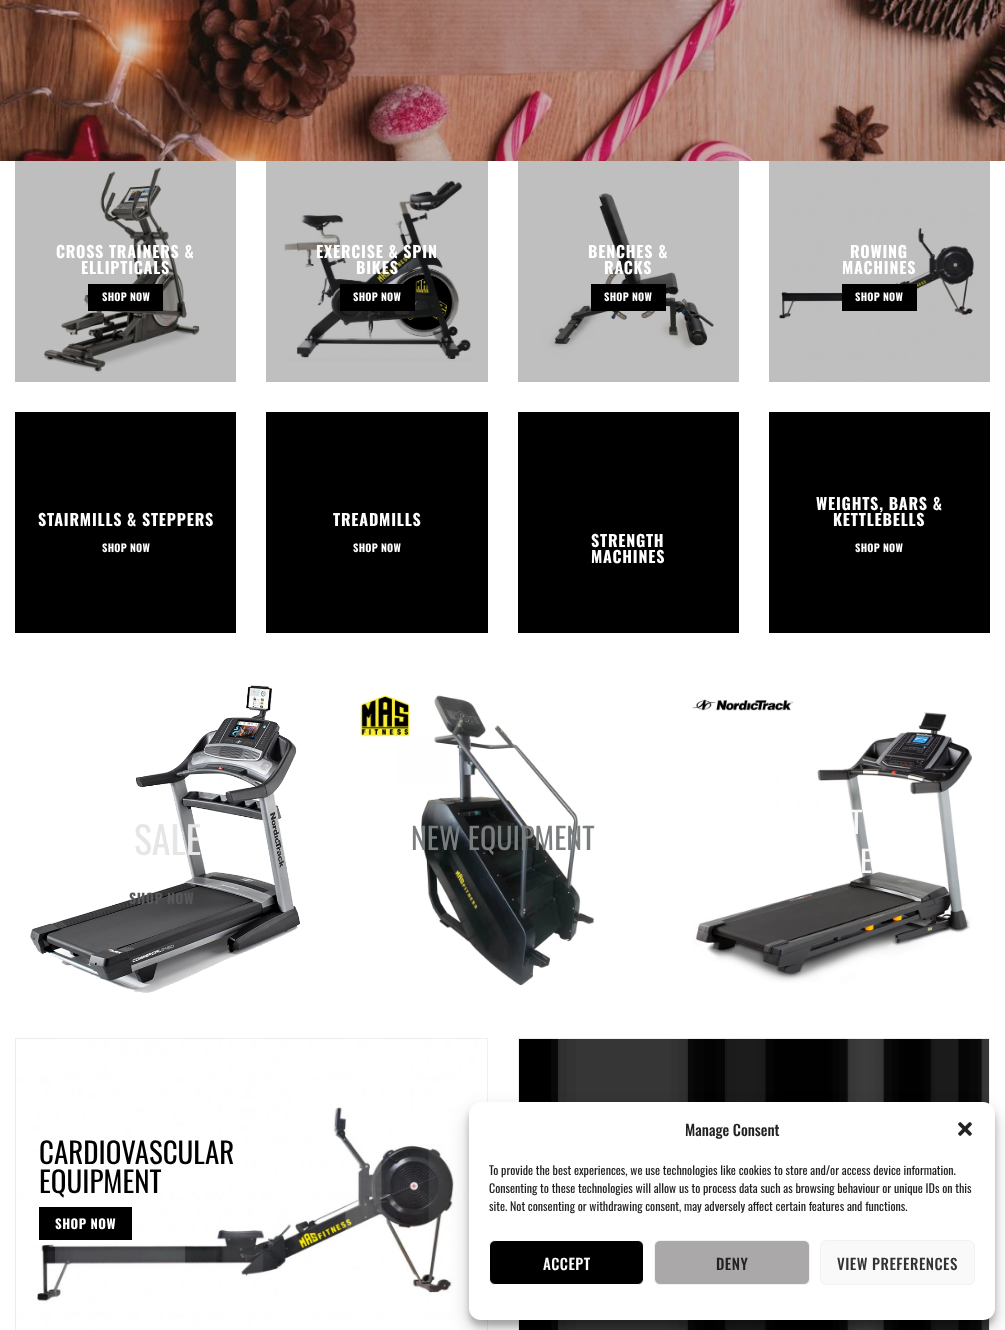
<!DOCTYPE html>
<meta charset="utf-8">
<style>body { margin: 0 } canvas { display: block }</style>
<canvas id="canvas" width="1005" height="1330"></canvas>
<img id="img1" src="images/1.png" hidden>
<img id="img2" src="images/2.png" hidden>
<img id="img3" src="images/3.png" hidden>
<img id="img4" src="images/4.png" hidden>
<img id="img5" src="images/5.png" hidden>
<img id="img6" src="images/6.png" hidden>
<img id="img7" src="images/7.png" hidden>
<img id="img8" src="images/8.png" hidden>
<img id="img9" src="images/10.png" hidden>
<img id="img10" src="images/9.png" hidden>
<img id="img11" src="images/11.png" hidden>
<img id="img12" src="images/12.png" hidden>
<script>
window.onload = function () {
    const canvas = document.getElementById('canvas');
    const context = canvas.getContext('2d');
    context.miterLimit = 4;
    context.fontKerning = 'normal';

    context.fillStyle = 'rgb(255, 255, 255)';
    context.fillRect(0, 0, 1005, 1330);
    context.drawImage(document.getElementById('img1'), 0, 0, 1005, 161);
    context.drawImage(document.getElementById('img2'), 15, 161, 221, 221);
    context.fillStyle = 'rgb(0, 0, 0)';
    context.fillRect(88, 284, 75, 27);
    context.drawImage(document.getElementById('img3'), 266, 161, 222, 221);
    context.fillRect(340, 284, 75, 27);
    context.drawImage(document.getElementById('img4'), 518, 161, 221, 221);
    context.fillRect(591, 284, 75, 27);
    context.drawImage(document.getElementById('img5'), 769, 161, 221, 221);
    context.fillRect(842, 284, 75, 27);
    context.fillRect(15, 412, 221, 221);
    context.fillRect(266, 412, 222, 221);
    context.fillRect(518, 412, 221, 221);
    context.fillRect(769, 412, 221, 221);
    context.drawImage(document.getElementById('img6'), 30, 685, 271, 308);
    context.drawImage(document.getElementById('img7'), 359, 695, 235, 291);
    context.drawImage(document.getElementById('img8'), 692, 699, 281, 284);
    context.drawImage(document.getElementById('img9'), 16, 1039, 471, 291);
    context.strokeStyle = 'rgb(236, 236, 236)';
    context.strokeRect(15.5, 1038.5, 472, 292);
    context.drawImage(document.getElementById('img10'), 48, 1038, 440, 292);
    context.fillRect(39, 1207, 93, 33);
    context.beginPath();
    context.rect(518.5, 1038.5, 471, 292);
    context.fill();
    context.stroke();
    context.drawImage(document.getElementById('img11'), 551, 1038, 439, 292);
    context.fillStyle = 'rgba(0, 0, 0, 0.23)';
    context.filter = 'blur(3px)';
    context.beginPath();
    context.roundRect(469, 1108, 526, 218, 12);
    context.fill();
    context.filter = 'none';
    context.fillStyle = 'rgba(0, 0, 0, 0.19)';
    context.filter = 'blur(10px)';
    context.beginPath();
    context.roundRect(469, 1112, 526, 218, 12);
    context.fill();
    context.filter = 'none';
    context.fillStyle = 'rgb(255, 255, 255)';
    context.beginPath();
    context.roundRect(469, 1102, 526, 218, 12);
    context.fill();
    context.drawImage(document.getElementById('img12'), 958, 1122, 14, 14);
    context.fillStyle = 'rgb(0, 0, 0)';
    context.beginPath();
    context.roundRect(489.5, 1240.5, 154, 44, 5.5);
    context.fill();
    context.strokeStyle = 'rgb(255, 255, 255)';
    context.stroke();
    context.fillStyle = 'rgb(170, 168, 168)';
    context.beginPath();
    context.roundRect(654.5, 1240.5, 155, 44, 5.5);
    context.fill();
    context.strokeStyle = 'rgb(242, 242, 242)';
    context.stroke();
    context.fillStyle = 'rgb(249, 249, 249)';
    context.beginPath();
    context.roundRect(820.5, 1240.5, 154, 44, 5.5);
    context.fill();
    context.stroke();
    context.letterSpacing = '0.8px';
    context.font = 'bold 16px Oswald';
    context.fillStyle = 'rgb(255, 255, 255)';
    context.fillText('CROSS TRAINERS &', 56, 258);
    context.fillText('ELLIPTICALS', 81, 274);
    context.letterSpacing = '0.25px';
    context.font = 'bold 10.5px Oswald';
    context.fillText('SHOP NOW', 102, 301);
    context.letterSpacing = '0.8px';
    context.font = 'bold 16px Oswald';
    context.fillText('EXERCISE & SPIN', 316, 258);
    context.fillText('BIKES', 356, 274);
    context.letterSpacing = '0.25px';
    context.font = 'bold 10.5px Oswald';
    context.fillText('SHOP NOW', 353, 301);
    context.letterSpacing = '0.8px';
    context.font = 'bold 16px Oswald';
    context.fillText('BENCHES &', 588, 258);
    context.fillText('RACKS', 604, 274);
    context.letterSpacing = '0.25px';
    context.font = 'bold 10.5px Oswald';
    context.fillText('SHOP NOW', 604, 301);
    context.letterSpacing = '0.8px';
    context.font = 'bold 16px Oswald';
    context.fillText('ROWING', 850, 258);
    context.fillText('MACHINES', 842, 274);
    context.letterSpacing = '0.25px';
    context.font = 'bold 10.5px Oswald';
    context.fillText('SHOP NOW', 855, 301);
    context.letterSpacing = '0.8px';
    context.font = 'bold 16px Oswald';
    context.fillText('STAIRMILLS & STEPPERS', 38, 526);
    context.letterSpacing = '0.25px';
    context.font = 'bold 10.5px Oswald';
    context.fillText('SHOP NOW', 102, 552);
    context.letterSpacing = '0.8px';
    context.font = 'bold 16px Oswald';
    context.fillText('TREADMILLS', 333, 526);
    context.letterSpacing = '0.25px';
    context.font = 'bold 10.5px Oswald';
    context.fillText('SHOP NOW', 353, 552);
    context.letterSpacing = '0.8px';
    context.font = 'bold 16px Oswald';
    context.fillText('STRENGTH', 591, 547);
    context.fillText('MACHINES', 591, 563);
    context.fillText('WEIGHTS, BARS &', 816, 510);
    context.fillText('KETTLEBELLS', 833, 526);
    context.letterSpacing = '0.25px';
    context.font = 'bold 10.5px Oswald';
    context.fillText('SHOP NOW', 855, 552);
    context.letterSpacing = '0px';
    context.font = '38px Oswald';
    context.fillStyle = 'rgb(230, 230, 231)';
    context.fillText('SALE', 134, 855);
    context.letterSpacing = '0.5px';
    context.font = 'bold 14px Oswald';
    context.fillStyle = 'rgb(87, 87, 89)';
    context.fillText('SHOP NOW', 129, 904);
    context.letterSpacing = '0px';
    context.font = '30px Oswald';
    context.fillStyle = 'rgb(122, 125, 126)';
    context.fillText('NEW EQUIPMENT', 411, 850);
    context.fillStyle = 'rgb(248, 248, 248)';
    context.fillText('T', 850, 834);
    context.fillText('E', 860, 873);
    context.font = '29px Oswald';
    context.fillStyle = 'rgb(0, 0, 0)';
    context.fillText('CARDIOVASCULAR', 39, 1164);
    context.fillText('EQUIPMENT', 39, 1193);
    context.letterSpacing = '0.5px';
    context.font = 'bold 13px Oswald';
    context.fillStyle = 'rgb(255, 255, 255)';
    context.fillText('SHOP NOW', 55, 1229);
    context.letterSpacing = '0px';
    context.font = '500 15px Oswald';
    context.fillStyle = 'rgb(34, 34, 34)';
    context.fillText('Manage Consent', 685, 1136);
    context.font = '12px Oswald';
    context.fillText('To provide the best experiences, we use technologies like cookies to store and/or access device information.', 489, 1175);
    context.fillText('Consenting to these technologies will allow us to process data such as browsing behaviour or unique IDs on this', 489, 1193);
    context.fillText('site. Not consenting or withdrawing consent, may adversely affect certain features and functions.', 489, 1211);
    context.letterSpacing = '0.5px';
    context.font = '500 15px Oswald';
    context.fillStyle = 'rgb(255, 255, 255)';
    context.fillText('ACCEPT', 543, 1270);
    context.fillStyle = 'rgb(34, 34, 34)';
    context.fillText('DENY', 716, 1270);
    context.fillStyle = 'rgb(51, 51, 51)';
    context.fillText('VIEW PREFERENCES', 837, 1270);
};
</script>
